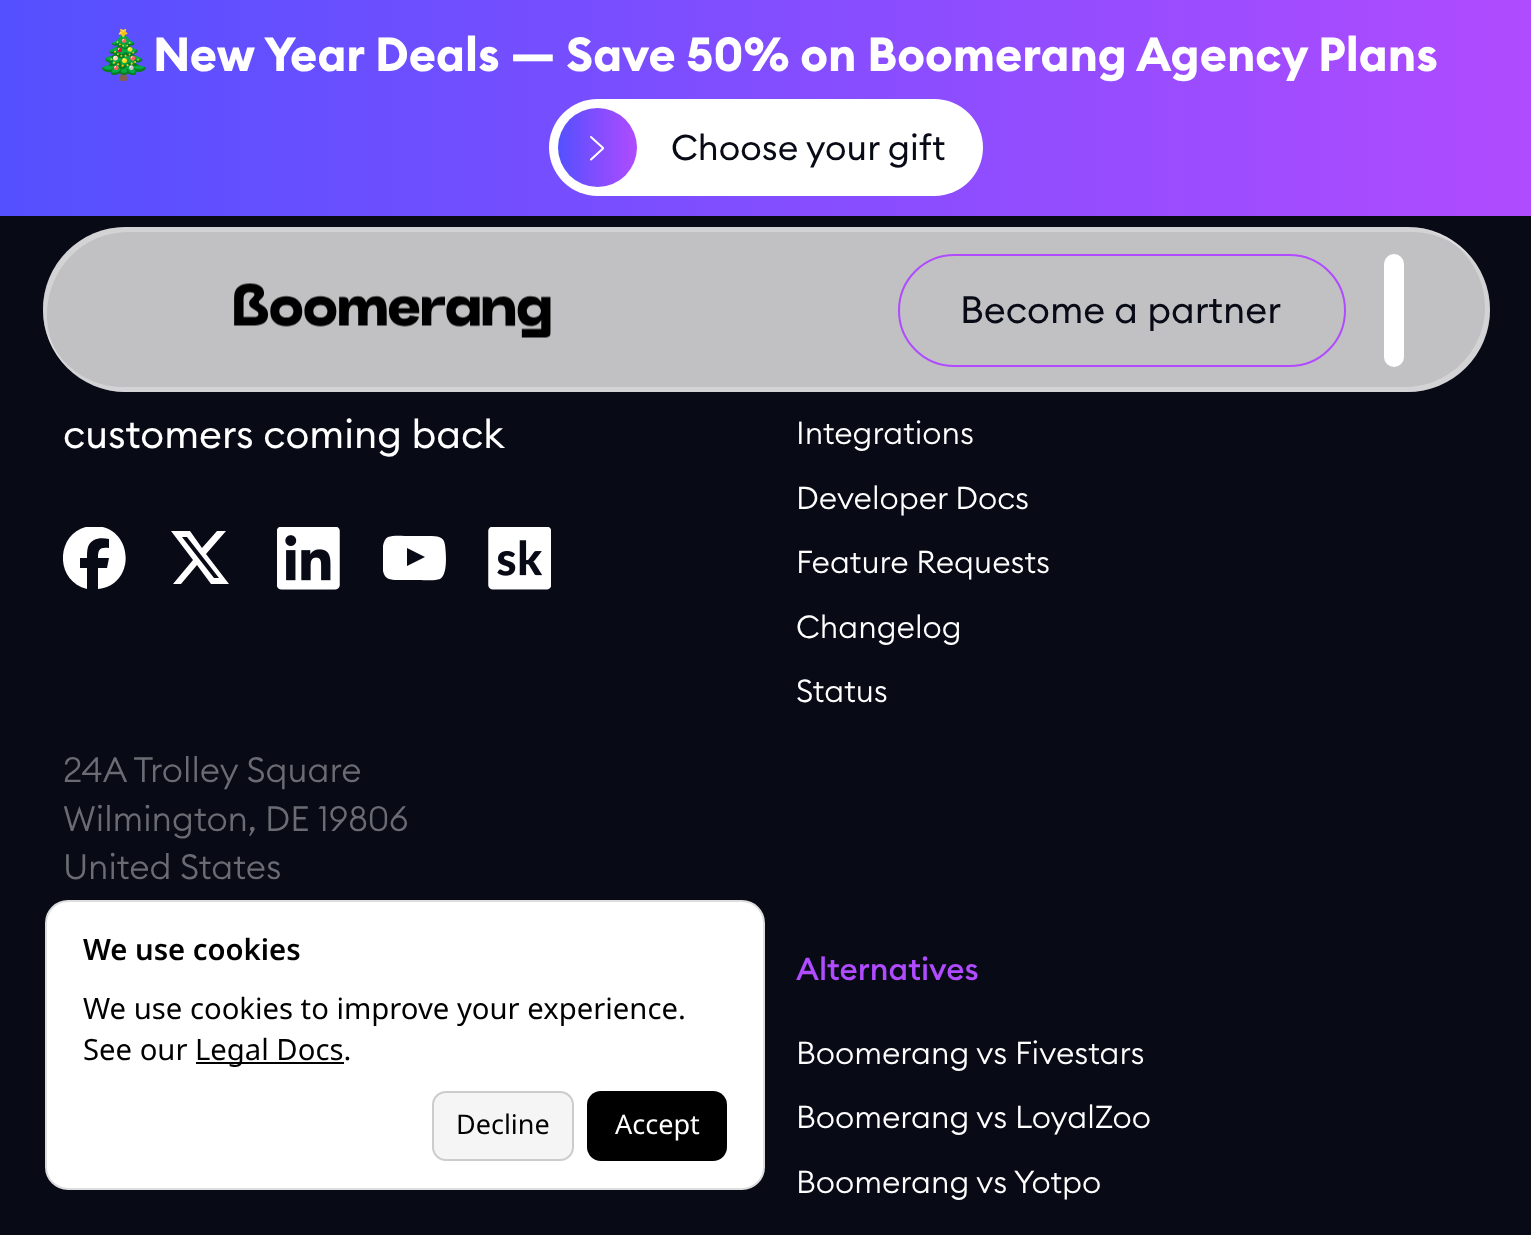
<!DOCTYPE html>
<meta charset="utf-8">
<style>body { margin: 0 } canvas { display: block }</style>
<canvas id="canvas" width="1531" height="1235"></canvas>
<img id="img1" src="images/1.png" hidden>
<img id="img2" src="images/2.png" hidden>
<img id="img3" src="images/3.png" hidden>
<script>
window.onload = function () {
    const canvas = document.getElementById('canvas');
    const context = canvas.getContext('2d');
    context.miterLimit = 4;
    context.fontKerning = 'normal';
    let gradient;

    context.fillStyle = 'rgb(8, 10, 22)';
    context.fillRect(0, 0, 1531, 1235);
    gradient = context.createLinearGradient(0, 108, 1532, 108);
    gradient.addColorStop(0, 'rgb(84, 80, 255)');
    gradient.addColorStop(1, 'rgb(176, 75, 255)');
    context.fillStyle = gradient;
    context.fillRect(0, 0, 1531, 216);
    context.fillStyle = 'rgb(255, 255, 255)';
    context.beginPath();
    context.roundRect(549, 99, 434, 97, 48.5);
    context.fill();
    gradient = context.createLinearGradient(558, 147, 637, 147);
    gradient.addColorStop(0, 'rgb(84, 80, 255)');
    gradient.addColorStop(1, 'rgb(176, 75, 255)');
    context.fillStyle = gradient;
    context.beginPath();
    context.arc(597.5, 147.5, 39.5, 0, 2 * Math.PI);
    context.fill();
    context.beginPath();
    context.moveTo(591, 137);
    context.lineTo(603, 148);
    context.bezierCurveTo(603, 148, 603, 148.5, 603, 148.5);
    context.lineTo(591, 159.5);
    context.strokeStyle = 'rgb(255, 255, 255)';
    context.lineWidth = 2;
    context.lineCap = 'round';
    context.stroke();
    context.fillStyle = 'rgba(255, 255, 255, 0.75)';
    context.beginPath();
    context.roundRect(43, 227, 1447, 165, 82.5);
    context.fill();
    context.fillStyle = 'rgba(255, 255, 255, 0.3)';
    context.beginPath();
    context.moveTo(129, 232);
    context.lineTo(1412, 232);
    context.bezierCurveTo(1436, 232, 1458, 243, 1473, 260);
    context.bezierCurveTo(1458, 240, 1434, 227, 1408, 227);
    context.lineTo(126, 227);
    context.bezierCurveTo(80, 227, 43, 264, 43, 310);
    context.bezierCurveTo(43, 333, 53, 354, 69, 369);
    context.bezierCurveTo(21, 318, 57, 232, 129, 232);
    context.closePath();
    context.fill();
    context.beginPath();
    context.moveTo(43, 308);
    context.lineTo(43, 310);
    context.bezierCurveTo(43, 355, 80, 392, 126, 392);
    context.lineTo(1408, 392);
    context.bezierCurveTo(1453, 392, 1490, 355, 1490, 310);
    context.bezierCurveTo(1490, 264, 1453, 227, 1408, 227);
    context.lineTo(1405, 227);
    context.bezierCurveTo(1449, 227, 1485, 263, 1485, 307);
    context.bezierCurveTo(1485, 351, 1449, 387, 1405, 387);
    context.lineTo(123, 387);
    context.bezierCurveTo(79, 387, 44, 352, 43, 308);
    context.closePath();
    context.fill();
    context.drawImage(document.getElementById('img1'), 234, 283, 317, 55);
    context.beginPath();
    context.roundRect(899, 255, 446, 111, 55.5);
    context.strokeStyle = 'rgb(176, 75, 255)';
    context.stroke();
    context.fillStyle = 'rgb(255, 255, 255)';
    context.beginPath();
    context.roundRect(1384, 254, 20, 113, 10);
    context.fill();
    context.save();
    context.beginPath();
    context.rect(63, 527, 63, 63);
    context.clip();
    context.beginPath();
    context.moveTo(94, 526);
    context.bezierCurveTo(57, 526, 51, 580, 87, 589);
    context.lineTo(87, 568);
    context.lineTo(80, 568);
    context.lineTo(80, 558);
    context.lineTo(87, 558);
    context.bezierCurveTo(87, 554, 87, 550, 88, 547);
    context.bezierCurveTo(91, 538, 101, 537, 109, 539);
    context.lineTo(109, 548);
    context.bezierCurveTo(100, 547, 98, 549, 98, 558);
    context.lineTo(109, 558);
    context.lineTo(107, 568);
    context.lineTo(98, 568);
    context.lineTo(98, 589);
    context.bezierCurveTo(137, 585, 134, 526, 94, 526);
    context.closePath();
    context.fill();
    context.restore();
    context.beginPath();
    context.moveTo(217, 531);
    context.lineTo(226, 531);
    context.lineTo(206, 554);
    context.lineTo(229, 584);
    context.lineTo(211, 584);
    context.lineTo(197, 565);
    context.lineTo(181, 584);
    context.lineTo(173, 584);
    context.lineTo(193, 560);
    context.lineTo(171, 531);
    context.lineTo(190, 531);
    context.lineTo(202, 548);
    context.closePath();
    context.moveTo(214, 578);
    context.lineTo(219, 578);
    context.lineTo(187, 537);
    context.lineTo(182, 537);
    context.closePath();
    context.fill();
    context.drawImage(document.getElementById('img2'), 277, 527, 63, 63);
    context.save();
    context.beginPath();
    context.rect(383, 527, 63, 63);
    context.clip();
    context.beginPath();
    context.moveTo(445, 545);
    context.bezierCurveTo(444, 536, 437, 536, 429, 536);
    context.lineTo(409, 536);
    context.bezierCurveTo(404, 536, 393, 535, 388, 537);
    context.bezierCurveTo(380, 541, 382, 564, 383, 571);
    context.bezierCurveTo(385, 581, 393, 580, 402, 580);
    context.lineTo(419, 580);
    context.bezierCurveTo(424, 580, 435, 581, 440, 579);
    context.bezierCurveTo(448, 575, 446, 552, 445, 545);
    context.closePath();
    context.moveTo(407, 566);
    context.lineTo(407, 548);
    context.lineTo(425, 557);
    context.closePath();
    context.fill();
    context.restore();
    context.drawImage(document.getElementById('img3'), 488, 527, 63, 63);
    context.beginPath();
    context.roundRect(46, 901, 718, 288, 22);
    context.fill();
    context.strokeStyle = 'rgb(221, 221, 221)';
    context.stroke();
    context.fillStyle = 'rgb(0, 0, 0)';
    context.fillRect(196, 1062, 148, 2);
    context.fillStyle = 'rgb(245, 245, 245)';
    context.beginPath();
    context.roundRect(433, 1092, 140, 68, 13);
    context.fill();
    context.strokeStyle = 'rgb(204, 204, 204)';
    context.stroke();
    context.fillStyle = 'rgb(0, 0, 0)';
    context.beginPath();
    context.roundRect(587, 1091, 140, 70, 14);
    context.fill();
    context.font = 'bold 47.25px Noto Color Emoji';
    context.fillStyle = 'rgb(255, 255, 255)';
    context.fillText('🎄', 94, 71);
    context.font = 'bold 47.25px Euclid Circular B';
    context.fillText('New Year Deals — Save 50% on Boomerang Agency Plans', 153, 71);
    context.font = '35.5px Euclid Circular B';
    context.fillStyle = 'rgb(8, 10, 22)';
    context.fillText('Choose your gift', 671, 160);
    context.font = '37.75px Euclid Circular B';
    context.fillText('Become a partner', 960, 323);
    context.font = '39.4px Euclid Circular B';
    context.fillStyle = 'rgb(255, 255, 255)';
    context.fillText('customers coming back', 63, 448);
    context.font = '300 34.75px Euclid Circular B';
    context.fillStyle = 'rgb(107, 108, 115)';
    context.fillText('24A Trolley Square', 63, 782);
    context.fillText('Wilmington, DE 19806', 63, 831);
    context.fillText('United States', 63, 879);
    context.font = '300 31.5px Euclid Circular B';
    context.fillStyle = 'rgb(255, 255, 255)';
    context.fillText('Integrations', 796, 444);
    context.fillText('Developer Docs', 796, 509);
    context.fillText('Feature Requests', 796, 573);
    context.fillText('Changelog', 796, 638);
    context.fillText('Status', 796, 702);
    context.font = '500 31.5px Euclid Circular B';
    context.fillStyle = 'rgb(176, 75, 255)';
    context.fillText('Alternatives', 796, 980);
    context.font = '300 31.5px Euclid Circular B';
    context.fillStyle = 'rgb(255, 255, 255)';
    context.fillText('Boomerang vs Fivestars', 796, 1064);
    context.fillText('Boomerang vs LoyalZoo', 796, 1128);
    context.fillText('Boomerang vs Yotpo', 796, 1193);
    context.font = '600 29.25px Noto Sans';
    context.fillStyle = 'rgb(0, 0, 0)';
    context.fillText('We use cookies', 83, 960);
    context.font = '29.25px Noto Sans';
    context.fillText('We use cookies to improve your experience.', 83, 1019);
    context.fillText('See our', 83, 1060);
    context.fillText('Legal Docs.', 195, 1060);
    context.font = '27px Noto Sans';
    context.fillText('Decline', 456, 1134);
    context.fillStyle = 'rgb(255, 255, 255)';
    context.fillText('Accept', 615, 1134);
};
</script>
